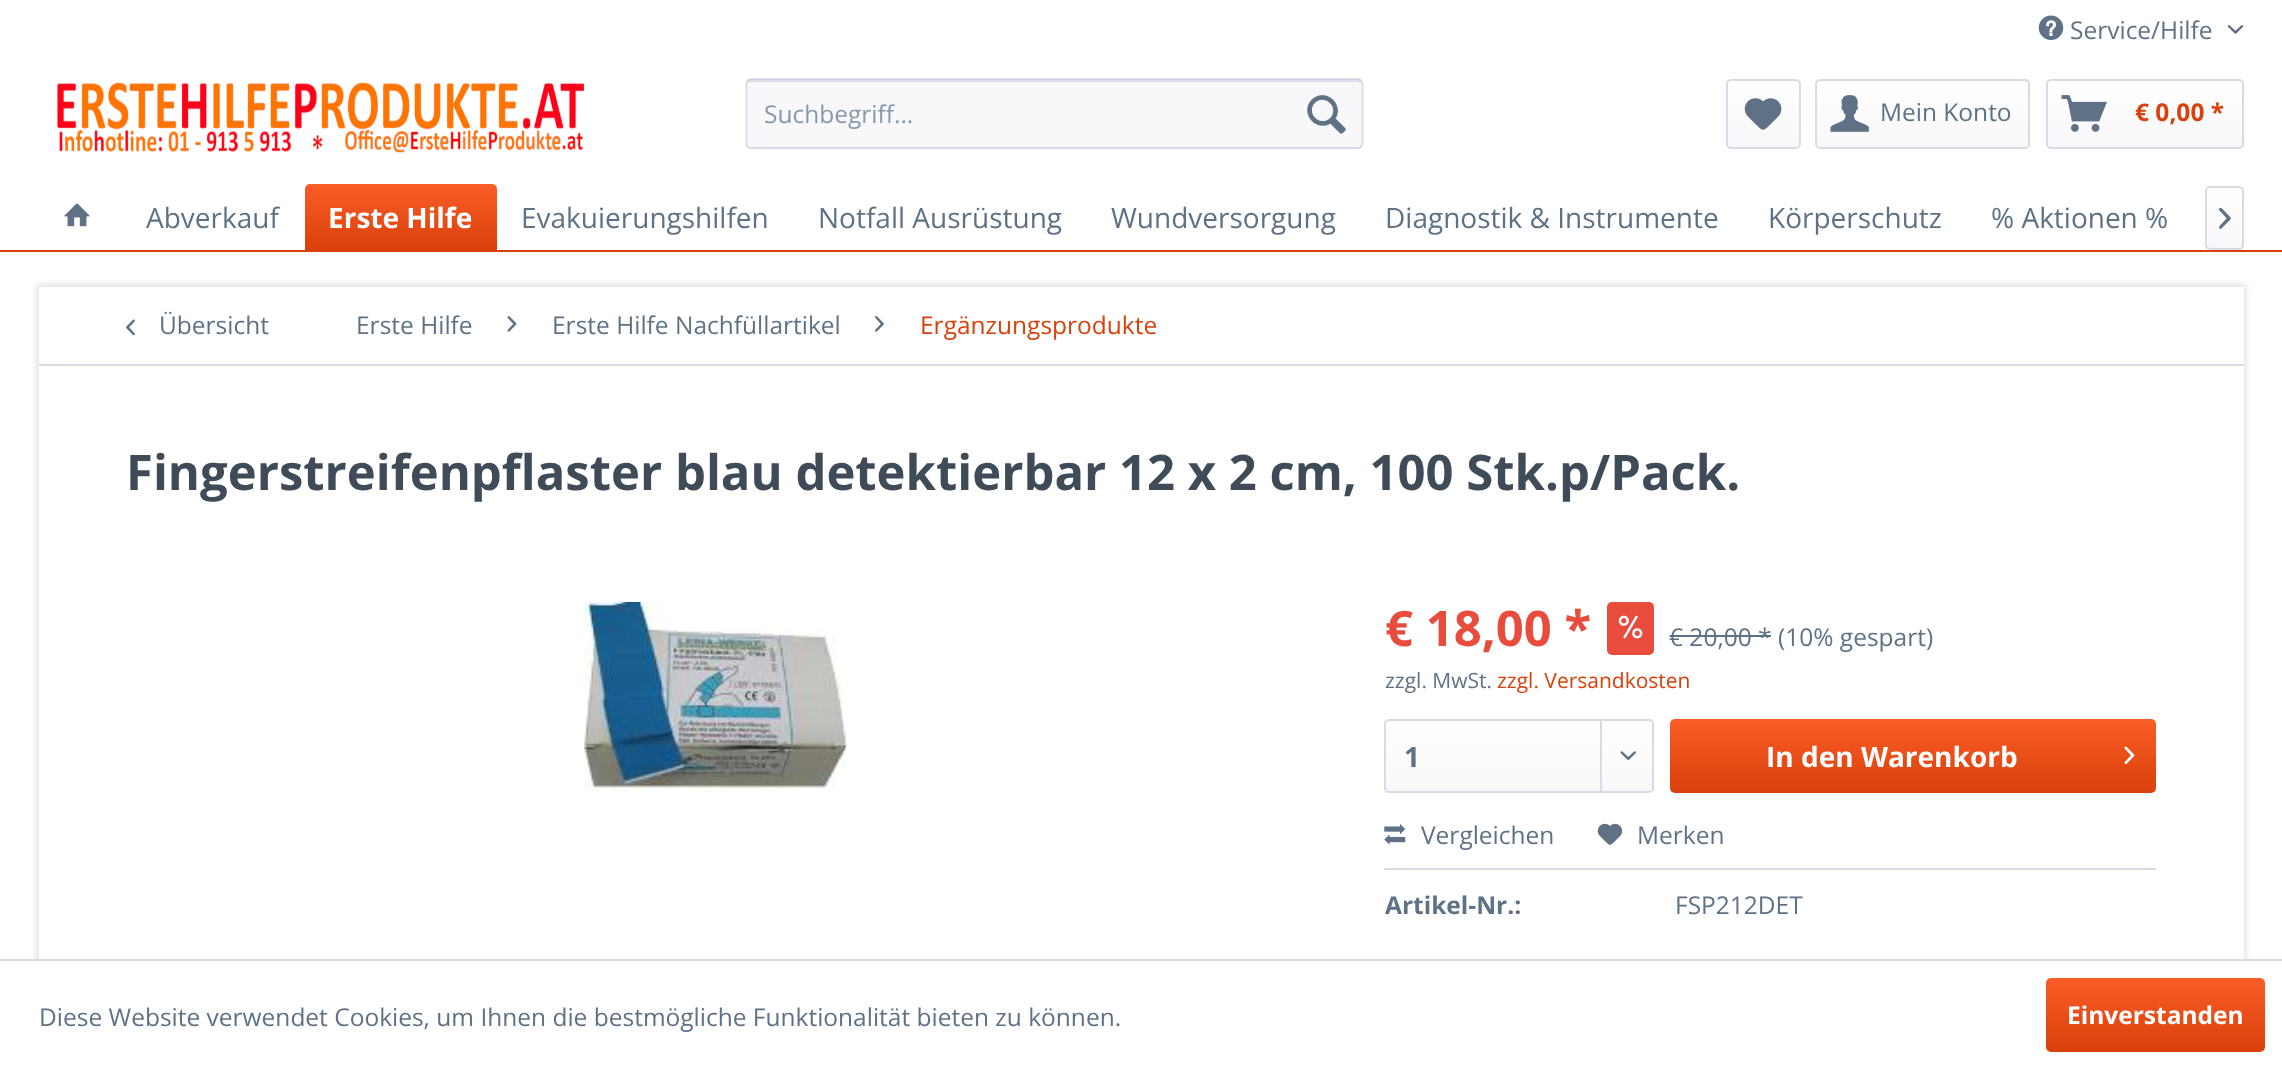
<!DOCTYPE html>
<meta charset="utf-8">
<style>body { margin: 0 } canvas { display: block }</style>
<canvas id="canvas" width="2282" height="1070"></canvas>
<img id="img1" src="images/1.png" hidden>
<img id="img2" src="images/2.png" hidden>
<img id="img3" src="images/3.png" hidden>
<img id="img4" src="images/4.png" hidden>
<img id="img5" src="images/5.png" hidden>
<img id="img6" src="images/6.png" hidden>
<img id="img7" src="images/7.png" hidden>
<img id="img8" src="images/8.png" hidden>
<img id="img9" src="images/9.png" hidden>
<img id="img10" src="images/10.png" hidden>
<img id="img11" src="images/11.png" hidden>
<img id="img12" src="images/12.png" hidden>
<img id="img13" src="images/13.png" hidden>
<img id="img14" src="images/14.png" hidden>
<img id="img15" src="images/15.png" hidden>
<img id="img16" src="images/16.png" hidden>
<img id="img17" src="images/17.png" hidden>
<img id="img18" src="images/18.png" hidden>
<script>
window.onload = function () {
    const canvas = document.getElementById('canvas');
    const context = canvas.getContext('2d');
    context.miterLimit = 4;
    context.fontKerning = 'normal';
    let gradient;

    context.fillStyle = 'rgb(255, 255, 255)';
    context.fillRect(0, 0, 2282, 1070);
    context.drawImage(document.getElementById('img1'), 2038, 15, 26, 25);
    context.drawImage(document.getElementById('img2'), 2227, 25, 17, 9);
    context.drawImage(document.getElementById('img3'), 57, 82, 527, 71);
    context.fillStyle = 'rgb(248, 248, 250)';
    context.beginPath();
    context.roundRect(746, 79, 617, 70, 5);
    context.fill();
    context.fillStyle = 'rgb(218, 218, 229)';
    context.beginPath();
    context.moveTo(751, 82);
    context.lineTo(1358, 82);
    context.bezierCurveTo(1360, 82, 1362, 84, 1362, 86);
    context.lineTo(1362, 85);
    context.bezierCurveTo(1362, 83, 1360, 81, 1358, 81);
    context.lineTo(751, 81);
    context.bezierCurveTo(749, 81, 747, 83, 747, 85);
    context.lineTo(747, 86);
    context.bezierCurveTo(747, 84, 749, 82, 751, 82);
    context.closePath();
    context.fill();
    context.beginPath();
    context.moveTo(747.5, 81);
    context.bezierCurveTo(748.5, 80, 749.5, 79.5, 751, 79.5);
    context.lineTo(1358, 79.5);
    context.bezierCurveTo(1359, 79.5, 1360.5, 80, 1361, 81);
    context.strokeStyle = 'rgb(203, 203, 219)';
    context.lineWidth = 1.8;
    context.stroke();
    context.beginPath();
    context.moveTo(1361, 81);
    context.bezierCurveTo(1362, 81.5, 1362.5, 83, 1362.5, 84);
    context.lineTo(1362.5, 143.5);
    context.bezierCurveTo(1362.5, 144.5, 1362, 146, 1361, 146.5);
    context.bezierCurveTo(1360.5, 147.5, 1359, 148, 1358, 148);
    context.lineTo(751, 148);
    context.bezierCurveTo(749.5, 148, 748.5, 147.5, 747.5, 146.5);
    context.bezierCurveTo(747, 146, 746.5, 144.5, 746.5, 143.5);
    context.lineTo(746.5, 84);
    context.bezierCurveTo(746.5, 83, 747, 81.5, 747.5, 81);
    context.strokeStyle = 'rgb(218, 218, 229)';
    context.stroke();
    context.drawImage(document.getElementById('img4'), 1307, 95, 39, 39);
    gradient = context.createLinearGradient(1763, 81, 1763, 147);
    gradient.addColorStop(0, 'rgb(255, 255, 255)');
    gradient.addColorStop(1, 'rgb(248, 248, 250)');
    context.fillStyle = gradient;
    context.beginPath();
    context.roundRect(1727, 81, 72, 66, 4);
    context.fill();
    context.beginPath();
    context.roundRect(1727, 80, 73, 68, 4);
    context.lineWidth = 2;
    context.stroke();
    context.drawImage(document.getElementById('img5'), 1744, 98, 38, 32);
    gradient = context.createLinearGradient(1922, 80, 1922, 147);
    gradient.addColorStop(0, 'rgb(255, 255, 255)');
    gradient.addColorStop(1, 'rgb(248, 248, 250)');
    context.fillStyle = gradient;
    context.beginPath();
    context.roundRect(1817, 81, 211, 66, 4);
    context.fill();
    context.beginPath();
    context.roundRect(1816, 80, 213, 68, 4);
    context.stroke();
    context.drawImage(document.getElementById('img6'), 1830, 95, 39, 37);
    gradient = context.createLinearGradient(2145, 80, 2145, 147);
    gradient.addColorStop(0, 'rgb(255, 255, 255)');
    gradient.addColorStop(1, 'rgb(248, 248, 250)');
    context.fillStyle = gradient;
    context.beginPath();
    context.roundRect(2048, 81, 194, 66, 4);
    context.fill();
    context.beginPath();
    context.roundRect(2047, 80, 196, 68, 4);
    context.stroke();
    context.drawImage(document.getElementById('img7'), 2061, 95, 46, 37);
    context.fillStyle = 'rgb(217, 64, 11)';
    context.fillRect(0, 250, 2282, 2);
    context.drawImage(document.getElementById('img8'), 64, 203, 26, 24);
    gradient = context.createLinearGradient(401, 184, 401, 250);
    gradient.addColorStop(0, 'rgb(250, 93, 39)');
    gradient.addColorStop(1, 'rgb(217, 64, 11)');
    context.fillStyle = gradient;
    context.beginPath();
    context.roundRect(305, 184, 192, 66, [5, 5, 0, 0]);
    context.fill();
    gradient = context.createLinearGradient(2224, 187, 2224, 249);
    gradient.addColorStop(0, 'rgb(255, 255, 255)');
    gradient.addColorStop(1, 'rgb(248, 248, 250)');
    context.fillStyle = gradient;
    context.beginPath();
    context.roundRect(2207, 187, 35, 62, 4);
    context.fill();
    context.beginPath();
    context.roundRect(2206, 187, 37, 62, 4);
    context.stroke();
    context.drawImage(document.getElementById('img9'), 2219, 207, 12, 22);
    context.fillStyle = 'rgb(218, 218, 229)';
    context.filter = 'blur(3.5px)';
    context.beginPath();
    context.rect(37, 285, 2208, 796);
    context.fill();
    context.filter = 'none';
    context.fillStyle = 'rgb(255, 255, 255)';
    context.fillRect(39, 287, 2205, 672);
    context.fillStyle = 'rgb(218, 218, 229)';
    context.fillRect(39, 364, 2205, 2);
    context.drawImage(document.getElementById('img10'), 126, 319, 9, 17);
    context.drawImage(document.getElementById('img11'), 507, 316, 10, 16);
    context.drawImage(document.getElementById('img12'), 875, 316, 9, 16);
    context.drawImage(document.getElementById('img13'), 584, 602, 263, 191);
    context.fillStyle = 'rgb(231, 76, 60)';
    context.beginPath();
    context.roundRect(1607, 602, 47, 53, 5);
    context.fill();
    context.drawImage(document.getElementById('img14'), 1618, 615, 25, 24);
    context.fillStyle = 'rgb(95, 114, 133)';
    context.fillRect(1670, 635, 101, 2);
    gradient = context.createLinearGradient(1519, 721, 1519, 791);
    gradient.addColorStop(0, 'rgb(255, 255, 255)');
    gradient.addColorStop(1, 'rgb(248, 248, 250)');
    context.fillStyle = gradient;
    context.beginPath();
    context.roundRect(1386, 721, 266, 70, 4);
    context.fill();
    context.beginPath();
    context.roundRect(1385, 720, 268, 72, 4);
    context.stroke();
    context.fillStyle = 'rgb(218, 218, 229)';
    context.fillRect(1600, 721, 2, 70);
    context.drawImage(document.getElementById('img15'), 1620, 751, 16, 9);
    gradient = context.createLinearGradient(1913, 719, 1913, 793);
    gradient.addColorStop(0, 'rgb(250, 93, 39)');
    gradient.addColorStop(1, 'rgb(217, 64, 11)');
    context.fillStyle = gradient;
    context.beginPath();
    context.roundRect(1670, 719, 486, 74, 5);
    context.fill();
    context.drawImage(document.getElementById('img16'), 2124, 746, 11, 19);
    context.fillStyle = 'rgb(218, 218, 229)';
    context.fillRect(1384, 868, 772, 2);
    context.drawImage(document.getElementById('img17'), 1384, 824, 22, 21);
    context.drawImage(document.getElementById('img18'), 1597, 823, 26, 22);
    context.fillStyle = 'rgb(255, 255, 255)';
    context.fillRect(32, 961, 2218, 109);
    context.fillStyle = 'rgb(218, 218, 229)';
    context.fillRect(0, 959, 2282, 2);
    gradient = context.createLinearGradient(2155, 978, 2155, 1052);
    gradient.addColorStop(0, 'rgb(250, 93, 39)');
    gradient.addColorStop(1, 'rgb(217, 64, 11)');
    context.fillStyle = gradient;
    context.beginPath();
    context.roundRect(2046, 978, 219, 74, 5);
    context.fill();
    context.font = '24.5px Open Sans';
    context.fillStyle = 'rgb(95, 114, 133)';
    context.fillText('Service/Hilfe', 2070, 39);
    context.fillStyle = 'rgb(135, 152, 169)';
    context.fillText('Suchbegriff...', 764, 123);
    context.fillStyle = 'rgb(95, 114, 133)';
    context.fillText('Mein Konto', 1880, 121);
    context.font = 'bold 24.5px Open Sans';
    context.fillStyle = 'rgb(217, 64, 11)';
    context.fillText('€ 0,00 *', 2135, 121);
    context.font = '28px Open Sans';
    context.fillStyle = 'rgb(95, 114, 133)';
    context.fillText('Abverkauf', 146, 228);
    context.font = 'bold 28px Open Sans';
    context.fillStyle = 'rgb(255, 255, 255)';
    context.fillText('Erste Hilfe', 328, 228);
    context.font = '28px Open Sans';
    context.fillStyle = 'rgb(95, 114, 133)';
    context.fillText('Evakuierungshilfen', 521, 228);
    context.fillText('Notfall Ausrüstung', 818, 228);
    context.fillText('Wundversorgung', 1111, 228);
    context.fillText('Diagnostik & Instrumente', 1385, 228);
    context.fillText('Körperschutz', 1768, 228);
    context.fillText('% Aktionen %', 1991, 228);
    context.font = '24.5px Open Sans';
    context.fillText('Übersicht', 159, 334);
    context.fillText('Erste Hilfe', 356, 334);
    context.fillText('Erste Hilfe Nachfüllartikel', 552, 334);
    context.fillStyle = 'rgb(217, 64, 11)';
    context.fillText('Ergänzungsprodukte', 920, 334);
    context.font = 'bold 49px Open Sans';
    context.fillStyle = 'rgb(63, 76, 88)';
    context.fillText('Fingerstreifenpflaster blau detektierbar 12 x 2 cm, 100 Stk.p/Pack.', 126, 490);
    context.fillStyle = 'rgb(231, 76, 60)';
    context.fillText('€ 18,00 *', 1385, 646);
    context.font = '24.5px Open Sans';
    context.fillStyle = 'rgb(95, 114, 133)';
    context.fillText('€ 20,00 * (10% gespart)', 1669, 646);
    context.font = '21px Open Sans';
    context.fillText('zzgl. MwSt.', 1385, 688);
    context.fillStyle = 'rgb(217, 64, 11)';
    context.fillText('zzgl. Versandkosten', 1497, 688);
    context.font = 'bold 28px Open Sans';
    context.fillStyle = 'rgb(95, 114, 133)';
    context.fillText('1', 1404, 767);
    context.fillStyle = 'rgb(255, 255, 255)';
    context.fillText('In den Warenkorb', 1766, 767);
    context.font = '24.5px Open Sans';
    context.fillStyle = 'rgb(95, 114, 133)';
    context.fillText('Vergleichen', 1421, 844);
    context.fillText('Merken', 1637, 844);
    context.font = 'bold 24.5px Open Sans';
    context.fillText('Artikel-Nr.:', 1385, 914);
    context.font = '24.5px Open Sans';
    context.fillText('FSP212DET', 1675, 914);
    context.fillText('Diese Website verwendet Cookies, um Ihnen die bestmögliche Funktionalität bieten zu können.', 39, 1026);
    context.font = 'bold 24.5px Open Sans';
    context.fillStyle = 'rgb(255, 255, 255)';
    context.fillText('Einverstanden', 2067, 1024);
};
</script>
